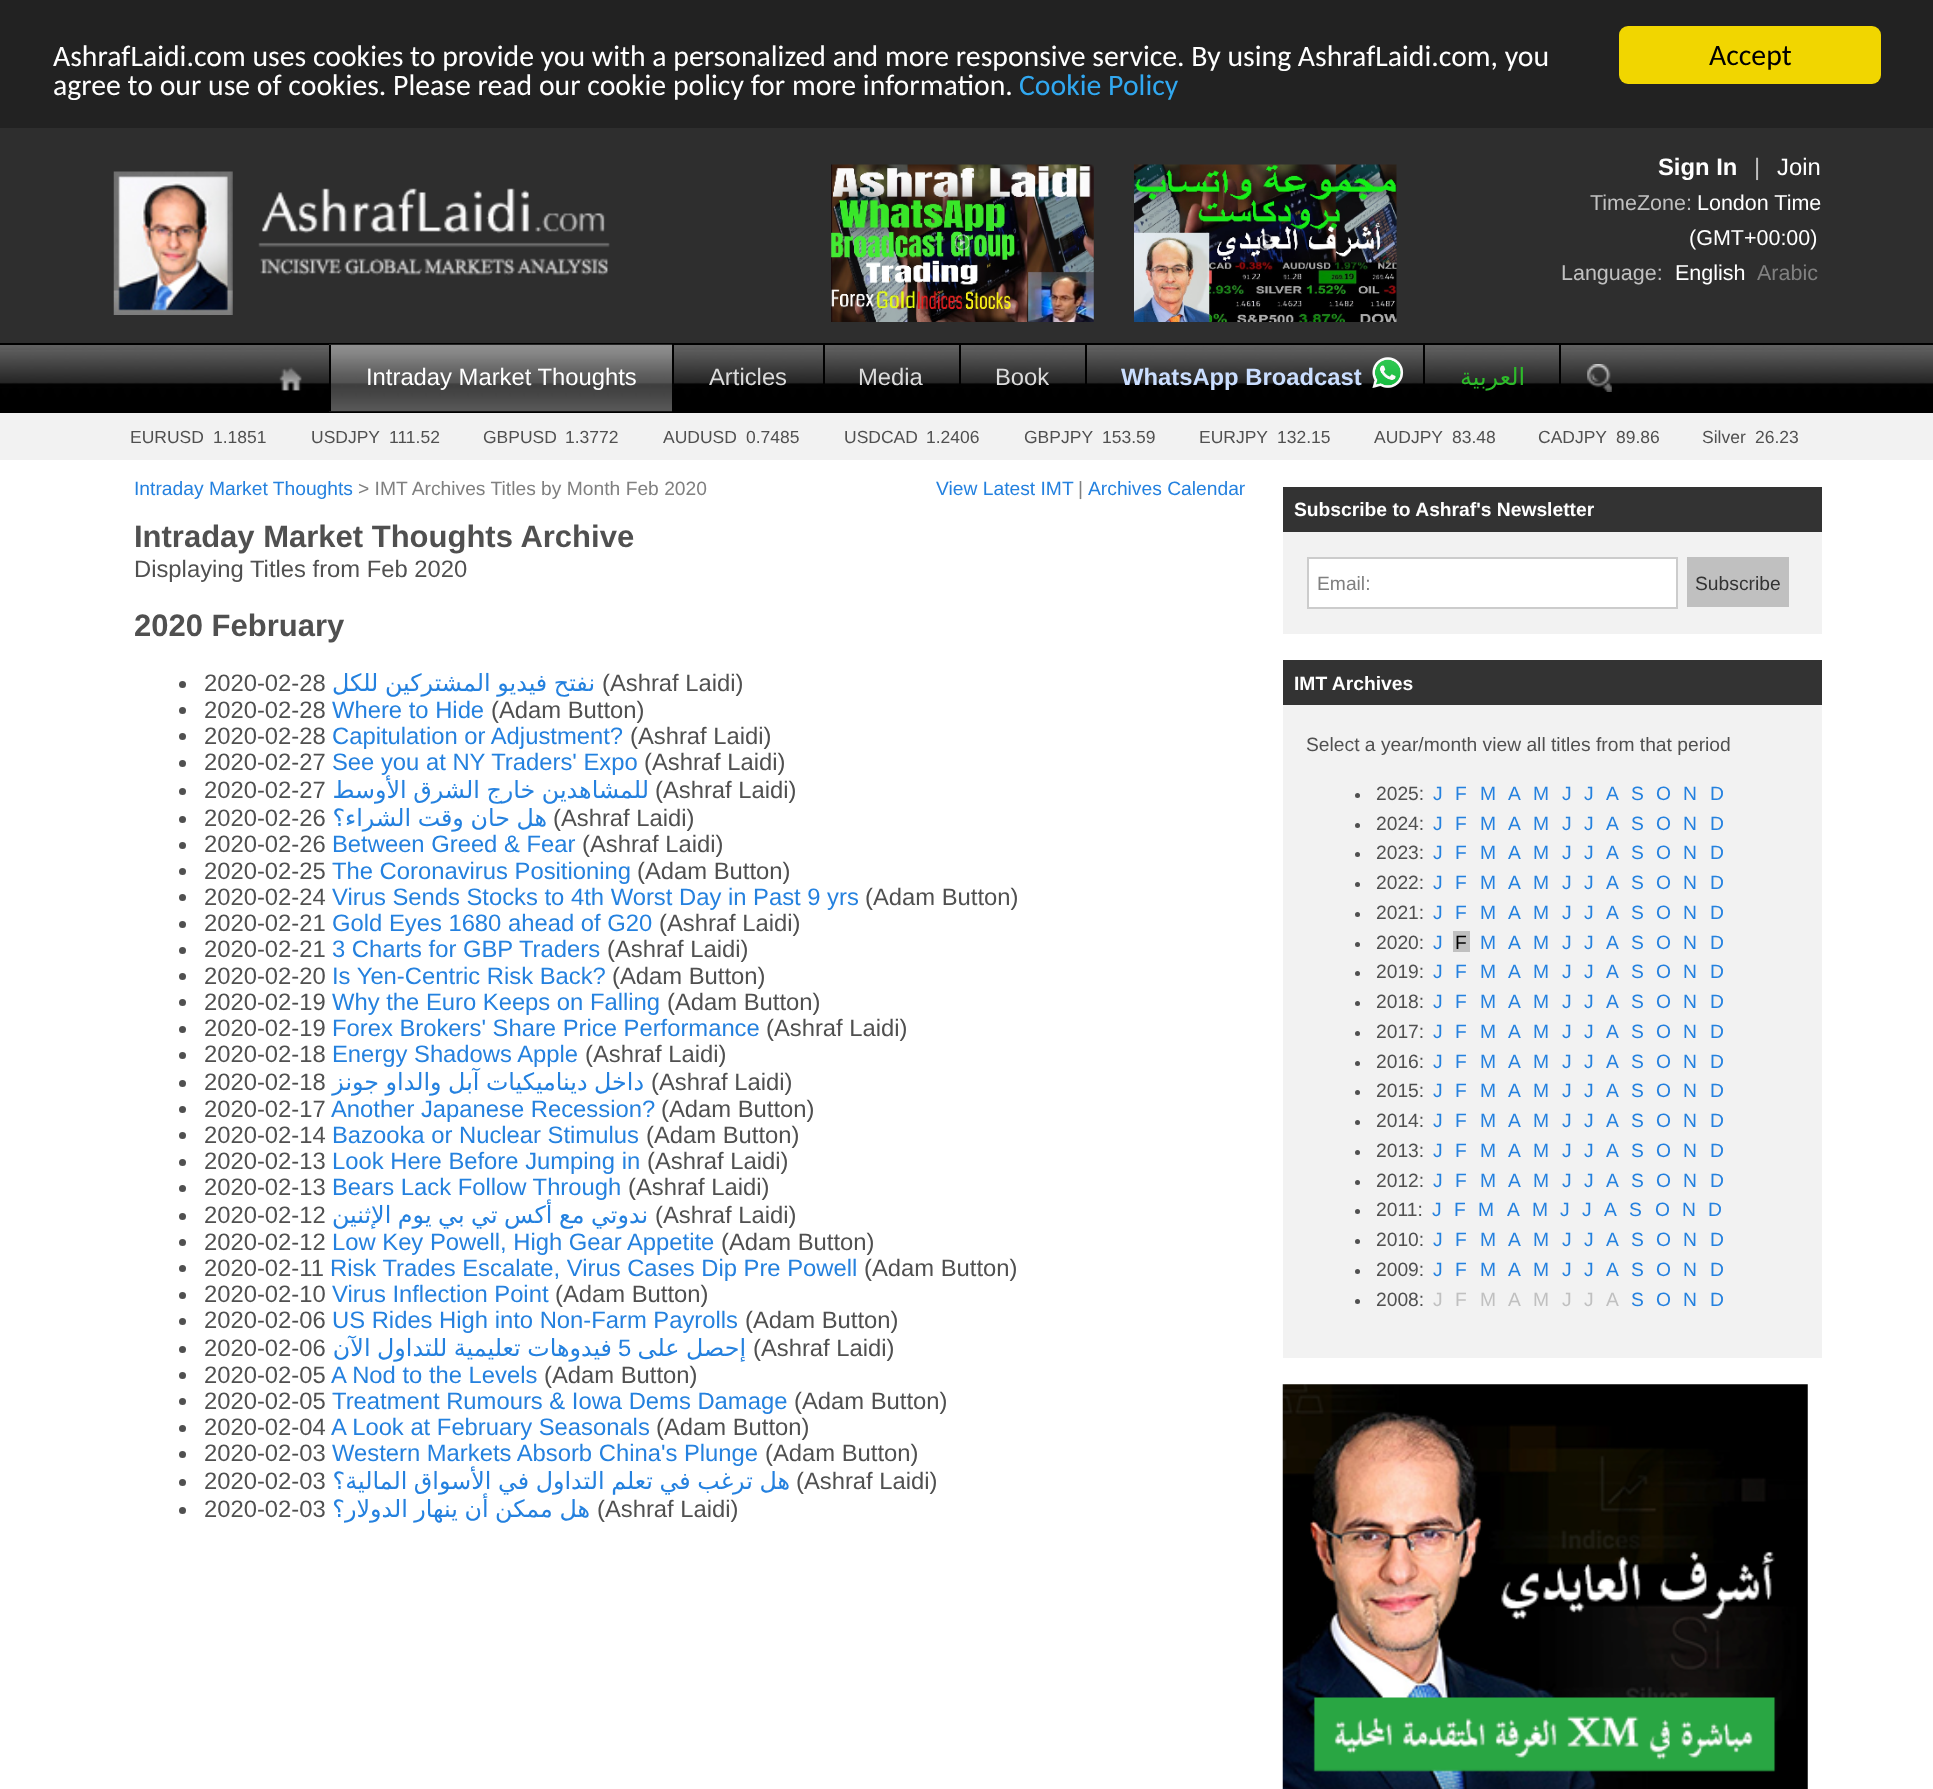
<!DOCTYPE html>
<meta charset="utf-8">
<style>body { margin: 0 } canvas { display: block }</style>
<canvas id="canvas" width="1933" height="1789"></canvas>
<img id="img1" src="images/1.png" hidden>
<img id="img2" src="images/2.png" hidden>
<img id="img3" src="images/3.png" hidden>
<img id="img4" src="images/4.png" hidden>
<img id="img5" src="images/5.png" hidden>
<img id="img6" src="images/6.png" hidden>
<img id="img7" src="images/7.png" hidden>
<img id="img8" src="images/8.png" hidden>
<img id="img9" src="images/9.png" hidden>
<img id="img10" src="images/10.png" hidden>
<script>
window.onload = function () {
    const canvas = document.getElementById('canvas');
    const context = canvas.getContext('2d');
    context.miterLimit = 4;
    context.fontKerning = 'normal';

    context.fillStyle = 'rgb(255, 255, 255)';
    context.fillRect(0, 0, 1933, 1789);
    context.fillStyle = 'rgb(34, 34, 34)';
    context.fillRect(0, 0, 1933, 128);
    context.fillStyle = 'rgb(241, 214, 0)';
    context.beginPath();
    context.roundRect(1619, 26, 262, 58, 9);
    context.fill();
    context.fillStyle = 'rgb(242, 242, 242)';
    context.fillRect(0, 413, 1933, 47);
    context.fillStyle = 'rgb(46, 46, 46)';
    context.fillRect(0, 128, 1933, 215);
    context.drawImage(document.getElementById('img1'), 113, 171, 120, 144);
    context.drawImage(document.getElementById('img2'), 258, 188, 352, 88);
    context.drawImage(document.getElementById('img3'), 831, 164, 263, 158);
    context.drawImage(document.getElementById('img4'), 1134, 164, 263, 158);
    context.drawImage(document.getElementById('img5'), 0, 345, 1933, 68);
    context.fillStyle = 'rgb(0, 0, 0)';
    context.fillRect(0, 343, 1933, 2);
    context.drawImage(document.getElementById('img6'), 279, 367, 23, 24);
    context.drawImage(document.getElementById('img7'), 329, 344, 343, 68);
    context.fillRect(329, 345, 2, 66);
    context.fillRect(672, 345, 2, 39);
    context.fillRect(823, 345, 2, 39);
    context.fillRect(959, 345, 2, 39);
    context.drawImage(document.getElementById('img8'), 1372, 357, 32, 31);
    context.fillRect(1085, 345, 2, 39);
    context.fillRect(1423, 345, 2, 39);
    context.drawImage(document.getElementById('img9'), 1587, 364, 25, 28);
    context.fillRect(1559, 345, 2, 39);
    context.fillStyle = 'rgb(80, 80, 80)';
    context.beginPath();
    context.arc(182.5, 684.5, 3.5, 0, 2 * Math.PI);
    context.fill();
    context.beginPath();
    context.arc(182.5, 710.5, 3.5, 0, 2 * Math.PI);
    context.fill();
    context.beginPath();
    context.arc(182.5, 736.5, 3.5, 0, 2 * Math.PI);
    context.fill();
    context.beginPath();
    context.arc(182.5, 763.5, 3.5, 0, 2 * Math.PI);
    context.fill();
    context.beginPath();
    context.arc(182.5, 791.5, 3.5, 0, 2 * Math.PI);
    context.fill();
    context.beginPath();
    context.arc(182.5, 819.5, 3.5, 0, 2 * Math.PI);
    context.fill();
    context.beginPath();
    context.arc(182.5, 845.5, 3.5, 0, 2 * Math.PI);
    context.fill();
    context.beginPath();
    context.arc(182.5, 871.5, 3.5, 0, 2 * Math.PI);
    context.fill();
    context.beginPath();
    context.arc(182.5, 897.5, 3.5, 0, 2 * Math.PI);
    context.fill();
    context.beginPath();
    context.arc(182.5, 924.5, 3.5, 0, 2 * Math.PI);
    context.fill();
    context.beginPath();
    context.arc(182.5, 950.5, 3.5, 0, 2 * Math.PI);
    context.fill();
    context.beginPath();
    context.arc(182.5, 976.5, 3.5, 0, 2 * Math.PI);
    context.fill();
    context.beginPath();
    context.arc(182.5, 1002.5, 3.5, 0, 2 * Math.PI);
    context.fill();
    context.beginPath();
    context.arc(182.5, 1029.5, 3.5, 0, 2 * Math.PI);
    context.fill();
    context.beginPath();
    context.arc(182.5, 1055.5, 3.5, 0, 2 * Math.PI);
    context.fill();
    context.beginPath();
    context.arc(182.5, 1083.5, 3.5, 0, 2 * Math.PI);
    context.fill();
    context.beginPath();
    context.arc(182.5, 1109.5, 3.5, 0, 2 * Math.PI);
    context.fill();
    context.beginPath();
    context.arc(182.5, 1135.5, 3.5, 0, 2 * Math.PI);
    context.fill();
    context.beginPath();
    context.arc(182.5, 1162.5, 3.5, 0, 2 * Math.PI);
    context.fill();
    context.beginPath();
    context.arc(182.5, 1188.5, 3.5, 0, 2 * Math.PI);
    context.fill();
    context.beginPath();
    context.arc(182.5, 1216.5, 3.5, 0, 2 * Math.PI);
    context.fill();
    context.beginPath();
    context.arc(182.5, 1242.5, 3.5, 0, 2 * Math.PI);
    context.fill();
    context.beginPath();
    context.arc(182.5, 1268.5, 3.5, 0, 2 * Math.PI);
    context.fill();
    context.beginPath();
    context.arc(182.5, 1295.5, 3.5, 0, 2 * Math.PI);
    context.fill();
    context.beginPath();
    context.arc(182.5, 1321.5, 3.5, 0, 2 * Math.PI);
    context.fill();
    context.beginPath();
    context.arc(182.5, 1349.5, 3.5, 0, 2 * Math.PI);
    context.fill();
    context.beginPath();
    context.arc(182.5, 1375.5, 3.5, 0, 2 * Math.PI);
    context.fill();
    context.beginPath();
    context.arc(182.5, 1401.5, 3.5, 0, 2 * Math.PI);
    context.fill();
    context.beginPath();
    context.arc(182.5, 1428.5, 3.5, 0, 2 * Math.PI);
    context.fill();
    context.beginPath();
    context.arc(182.5, 1454.5, 3.5, 0, 2 * Math.PI);
    context.fill();
    context.beginPath();
    context.arc(182.5, 1482.5, 3.5, 0, 2 * Math.PI);
    context.fill();
    context.beginPath();
    context.arc(182.5, 1510.5, 3.5, 0, 2 * Math.PI);
    context.fill();
    context.fillStyle = 'rgb(242, 242, 242)';
    context.fillRect(1283, 532, 539, 102);
    context.fillStyle = 'rgb(51, 51, 51)';
    context.fillRect(1283, 487, 539, 45);
    context.fillStyle = 'rgb(255, 255, 255)';
    context.beginPath();
    context.rect(1308, 558, 369, 50);
    context.fill();
    context.strokeStyle = 'rgb(204, 204, 204)';
    context.lineWidth = 2;
    context.stroke();
    context.fillStyle = 'rgb(192, 192, 192)';
    context.fillRect(1687, 557, 102, 50);
    context.fillStyle = 'rgb(242, 242, 242)';
    context.fillRect(1283, 705, 539, 653);
    context.fillStyle = 'rgb(51, 51, 51)';
    context.fillRect(1283, 660, 539, 45);
    context.fillStyle = 'rgb(80, 80, 80)';
    context.beginPath();
    context.arc(1357.5, 795.5, 2.5, 0, 2 * Math.PI);
    context.fill();
    context.beginPath();
    context.arc(1357.5, 825.5, 2.5, 0, 2 * Math.PI);
    context.fill();
    context.beginPath();
    context.arc(1357.5, 854.5, 2.5, 0, 2 * Math.PI);
    context.fill();
    context.beginPath();
    context.arc(1357.5, 884.5, 2.5, 0, 2 * Math.PI);
    context.fill();
    context.beginPath();
    context.arc(1357.5, 914.5, 2.5, 0, 2 * Math.PI);
    context.fill();
    context.beginPath();
    context.arc(1357.5, 944.5, 2.5, 0, 2 * Math.PI);
    context.fill();
    context.fillStyle = 'rgb(192, 192, 192)';
    context.fillRect(1453, 931, 17, 21);
    context.fillStyle = 'rgb(80, 80, 80)';
    context.beginPath();
    context.arc(1357.5, 973.5, 2.5, 0, 2 * Math.PI);
    context.fill();
    context.beginPath();
    context.arc(1357.5, 1003.5, 2.5, 0, 2 * Math.PI);
    context.fill();
    context.beginPath();
    context.arc(1357.5, 1033.5, 2.5, 0, 2 * Math.PI);
    context.fill();
    context.beginPath();
    context.arc(1357.5, 1063.5, 2.5, 0, 2 * Math.PI);
    context.fill();
    context.beginPath();
    context.arc(1357.5, 1092.5, 2.5, 0, 2 * Math.PI);
    context.fill();
    context.beginPath();
    context.arc(1357.5, 1122.5, 2.5, 0, 2 * Math.PI);
    context.fill();
    context.beginPath();
    context.arc(1357.5, 1152.5, 2.5, 0, 2 * Math.PI);
    context.fill();
    context.beginPath();
    context.arc(1357.5, 1182.5, 2.5, 0, 2 * Math.PI);
    context.fill();
    context.beginPath();
    context.arc(1357.5, 1211.5, 2.5, 0, 2 * Math.PI);
    context.fill();
    context.beginPath();
    context.arc(1357.5, 1241.5, 2.5, 0, 2 * Math.PI);
    context.fill();
    context.beginPath();
    context.arc(1357.5, 1271.5, 2.5, 0, 2 * Math.PI);
    context.fill();
    context.beginPath();
    context.arc(1357.5, 1301.5, 2.5, 0, 2 * Math.PI);
    context.fill();
    context.drawImage(document.getElementById('img10'), 1282, 1384, 526, 405);
    context.font = '29.75px Carlito';
    context.fillStyle = 'rgb(255, 255, 255)';
    context.fillText('AshrafLaidi.com uses cookies to provide you with a personalized and more responsive service. By using AshrafLaidi.com, you', 53, 66);
    context.fillText('agree to our use of cookies. Please read our cookie policy for more information.', 53, 95);
    context.fillStyle = 'rgb(49, 168, 240)';
    context.fillText('Cookie Policy', 1019, 95);
    context.fillStyle = 'rgb(0, 0, 0)';
    context.fillText('Accept', 1709, 65);
    context.font = 'bold 23.8px Liberation Sans';
    context.fillStyle = 'rgb(255, 255, 255)';
    context.fillText('Sign In', 1658, 175);
    context.font = '23.8px Liberation Sans';
    context.fillStyle = 'rgb(192, 192, 192)';
    context.fillText('|', 1754, 175);
    context.fillStyle = 'rgb(255, 255, 255)';
    context.fillText('Join', 1777, 175);
    context.font = '21.5px Liberation Sans';
    context.fillStyle = 'rgb(192, 192, 192)';
    context.fillText('TimeZone:', 1590, 210);
    context.fillStyle = 'rgb(255, 255, 255)';
    context.fillText('London Time', 1697, 210);
    context.fillText('(GMT+00:00)', 1689, 245);
    context.fillStyle = 'rgb(192, 192, 192)';
    context.fillText('Language:', 1561, 280);
    context.fillStyle = 'rgb(255, 255, 255)';
    context.fillText('English', 1675, 280);
    context.fillStyle = 'rgb(128, 128, 128)';
    context.fillText('Arabic', 1757, 280);
    context.font = '23.8px Liberation Sans';
    context.fillStyle = 'rgb(255, 255, 255)';
    context.fillText('Intraday Market Thoughts', 366, 385);
    context.fillStyle = 'rgb(220, 220, 220)';
    context.fillText('Articles', 709, 385);
    context.fillText('Media', 858, 385);
    context.fillText('Book', 995, 385);
    context.font = 'bold 23.8px Liberation Sans';
    context.fillStyle = 'rgb(202, 222, 255)';
    context.fillText('WhatsApp Broadcast', 1121, 385);
    context.direction = 'rtl';
    context.font = '23.8px DejaVu Sans';
    context.fillStyle = 'rgb(45, 187, 42)';
    context.fillText('العربية', 1525, 385);
    context.direction = 'ltr';
    context.font = '17.5px Liberation Sans';
    context.fillStyle = 'rgb(80, 80, 80)';
    context.fillText('EURUSD', 130, 443);
    context.fillText('1.1851', 213, 443);
    context.fillText('USDJPY', 311, 443);
    context.fillText('111.52', 389, 443);
    context.fillText('GBPUSD', 483, 443);
    context.fillText('1.3772', 565, 443);
    context.fillText('AUDUSD', 663, 443);
    context.fillText('0.7485', 746, 443);
    context.fillText('USDCAD', 844, 443);
    context.fillText('1.2406', 926, 443);
    context.fillText('GBPJPY', 1024, 443);
    context.fillText('153.59', 1102, 443);
    context.fillText('EURJPY', 1199, 443);
    context.fillText('132.15', 1277, 443);
    context.fillText('AUDJPY', 1374, 443);
    context.fillText('83.48', 1452, 443);
    context.fillText('CADJPY', 1538, 443);
    context.fillText('89.86', 1616, 443);
    context.fillText('Silver', 1702, 443);
    context.fillText('26.23', 1755, 443);
    context.font = '19.25px Liberation Sans';
    context.fillStyle = 'rgb(36, 129, 223)';
    context.fillText('Intraday Market Thoughts', 134, 495);
    context.fillStyle = 'rgb(128, 128, 128)';
    context.fillText('> IMT Archives Titles by Month Feb 2020', 358, 495);
    context.fillStyle = 'rgb(36, 129, 223)';
    context.fillText('View Latest IMT', 936, 495);
    context.fillStyle = 'rgb(128, 128, 128)';
    context.fillText('|', 1078, 495);
    context.fillStyle = 'rgb(36, 129, 223)';
    context.fillText('Archives Calendar', 1088, 495);
    context.font = 'bold 31px Liberation Sans';
    context.fillStyle = 'rgb(80, 80, 80)';
    context.fillText('Intraday Market Thoughts Archive', 134, 547);
    context.font = '23.8px Liberation Sans';
    context.fillText('Displaying Titles from Feb 2020', 134, 577);
    context.font = 'bold 31px Liberation Sans';
    context.fillText('2020 February', 134, 636);
    context.font = '23.8px Liberation Sans';
    context.fillText('2020-02-28', 204, 691);
    context.wordSpacing = '-1px';
    context.direction = 'rtl';
    context.font = '23.8px DejaVu Sans';
    context.fillStyle = 'rgb(36, 129, 223)';
    context.fillText('نفتح فيديو المشتركين للكل', 595, 691);
    context.wordSpacing = '0px';
    context.direction = 'ltr';
    context.font = '23.8px Liberation Sans';
    context.fillStyle = 'rgb(80, 80, 80)';
    context.fillText('(Ashraf Laidi)', 602, 691);
    context.fillText('2020-02-28', 204, 718);
    context.fillStyle = 'rgb(36, 129, 223)';
    context.fillText('Where to Hide', 332, 718);
    context.fillStyle = 'rgb(80, 80, 80)';
    context.fillText('(Adam Button)', 491, 718);
    context.fillText('2020-02-28', 204, 744);
    context.fillStyle = 'rgb(36, 129, 223)';
    context.fillText('Capitulation or Adjustment?', 332, 744);
    context.fillStyle = 'rgb(80, 80, 80)';
    context.fillText('(Ashraf Laidi)', 630, 744);
    context.fillText('2020-02-27', 204, 770);
    context.fillStyle = 'rgb(36, 129, 223)';
    context.fillText('See you at NY Traders\' Expo', 332, 770);
    context.fillStyle = 'rgb(80, 80, 80)';
    context.fillText('(Ashraf Laidi)', 644, 770);
    context.fillText('2020-02-27', 204, 798);
    context.wordSpacing = '-1px';
    context.direction = 'rtl';
    context.font = '23.8px DejaVu Sans';
    context.fillStyle = 'rgb(36, 129, 223)';
    context.fillText('للمشاهدين خارج الشرق الأوسط', 649, 798);
    context.wordSpacing = '0px';
    context.direction = 'ltr';
    context.font = '23.8px Liberation Sans';
    context.fillStyle = 'rgb(80, 80, 80)';
    context.fillText('(Ashraf Laidi)', 655, 798);
    context.fillText('2020-02-26', 204, 826);
    context.wordSpacing = '-1px';
    context.direction = 'rtl';
    context.font = '23.8px DejaVu Sans';
    context.fillStyle = 'rgb(36, 129, 223)';
    context.fillText('هل حان وقت الشراء؟', 547, 826);
    context.wordSpacing = '0px';
    context.direction = 'ltr';
    context.font = '23.8px Liberation Sans';
    context.fillStyle = 'rgb(80, 80, 80)';
    context.fillText('(Ashraf Laidi)', 553, 826);
    context.fillText('2020-02-26', 204, 852);
    context.fillStyle = 'rgb(36, 129, 223)';
    context.fillText('Between Greed & Fear', 332, 852);
    context.fillStyle = 'rgb(80, 80, 80)';
    context.fillText('(Ashraf Laidi)', 582, 852);
    context.fillText('2020-02-25', 204, 879);
    context.fillStyle = 'rgb(36, 129, 223)';
    context.fillText('The Coronavirus Positioning', 332, 879);
    context.fillStyle = 'rgb(80, 80, 80)';
    context.fillText('(Adam Button)', 637, 879);
    context.fillText('2020-02-24', 204, 905);
    context.fillStyle = 'rgb(36, 129, 223)';
    context.fillText('Virus Sends Stocks to 4th Worst Day in Past 9 yrs', 332, 905);
    context.fillStyle = 'rgb(80, 80, 80)';
    context.fillText('(Adam Button)', 865, 905);
    context.fillText('2020-02-21', 204, 931);
    context.fillStyle = 'rgb(36, 129, 223)';
    context.fillText('Gold Eyes 1680 ahead of G20', 332, 931);
    context.fillStyle = 'rgb(80, 80, 80)';
    context.fillText('(Ashraf Laidi)', 659, 931);
    context.fillText('2020-02-21', 204, 957);
    context.fillStyle = 'rgb(36, 129, 223)';
    context.fillText('3 Charts for GBP Traders', 332, 957);
    context.fillStyle = 'rgb(80, 80, 80)';
    context.fillText('(Ashraf Laidi)', 607, 957);
    context.fillText('2020-02-20', 204, 984);
    context.fillStyle = 'rgb(36, 129, 223)';
    context.fillText('Is Yen-Centric Risk Back?', 332, 984);
    context.fillStyle = 'rgb(80, 80, 80)';
    context.fillText('(Adam Button)', 612, 984);
    context.fillText('2020-02-19', 204, 1010);
    context.fillStyle = 'rgb(36, 129, 223)';
    context.fillText('Why the Euro Keeps on Falling', 332, 1010);
    context.fillStyle = 'rgb(80, 80, 80)';
    context.fillText('(Adam Button)', 667, 1010);
    context.fillText('2020-02-19', 204, 1036);
    context.fillStyle = 'rgb(36, 129, 223)';
    context.fillText('Forex Brokers\' Share Price Performance', 332, 1036);
    context.fillStyle = 'rgb(80, 80, 80)';
    context.fillText('(Ashraf Laidi)', 766, 1036);
    context.fillText('2020-02-18', 204, 1062);
    context.fillStyle = 'rgb(36, 129, 223)';
    context.fillText('Energy Shadows Apple', 332, 1062);
    context.fillStyle = 'rgb(80, 80, 80)';
    context.fillText('(Ashraf Laidi)', 585, 1062);
    context.fillText('2020-02-18', 204, 1090);
    context.wordSpacing = '-1px';
    context.direction = 'rtl';
    context.font = '23.8px DejaVu Sans';
    context.fillStyle = 'rgb(36, 129, 223)';
    context.fillText('داخل ديناميكيات آبل والداو جونز', 644, 1090);
    context.wordSpacing = '0px';
    context.direction = 'ltr';
    context.font = '23.8px Liberation Sans';
    context.fillStyle = 'rgb(80, 80, 80)';
    context.fillText('(Ashraf Laidi)', 651, 1090);
    context.fillText('2020-02-17', 204, 1117);
    context.fillStyle = 'rgb(36, 129, 223)';
    context.fillText('Another Japanese Recession?', 331, 1117);
    context.fillStyle = 'rgb(80, 80, 80)';
    context.fillText('(Adam Button)', 661, 1117);
    context.fillText('2020-02-14', 204, 1143);
    context.fillStyle = 'rgb(36, 129, 223)';
    context.fillText('Bazooka or Nuclear Stimulus', 332, 1143);
    context.fillStyle = 'rgb(80, 80, 80)';
    context.fillText('(Adam Button)', 646, 1143);
    context.fillText('2020-02-13', 204, 1169);
    context.fillStyle = 'rgb(36, 129, 223)';
    context.fillText('Look Here Before Jumping in', 332, 1169);
    context.fillStyle = 'rgb(80, 80, 80)';
    context.fillText('(Ashraf Laidi)', 647, 1169);
    context.fillText('2020-02-13', 204, 1195);
    context.fillStyle = 'rgb(36, 129, 223)';
    context.fillText('Bears Lack Follow Through', 332, 1195);
    context.fillStyle = 'rgb(80, 80, 80)';
    context.fillText('(Ashraf Laidi)', 628, 1195);
    context.fillText('2020-02-12', 204, 1223);
    context.wordSpacing = '-1px';
    context.direction = 'rtl';
    context.font = '23.8px DejaVu Sans';
    context.fillStyle = 'rgb(36, 129, 223)';
    context.fillText('ندوتي مع أكس تي بي يوم الإثنين', 648, 1223);
    context.wordSpacing = '0px';
    context.direction = 'ltr';
    context.font = '23.8px Liberation Sans';
    context.fillStyle = 'rgb(80, 80, 80)';
    context.fillText('(Ashraf Laidi)', 655, 1223);
    context.fillText('2020-02-12', 204, 1250);
    context.fillStyle = 'rgb(36, 129, 223)';
    context.fillText('Low Key Powell, High Gear Appetite', 332, 1250);
    context.fillStyle = 'rgb(80, 80, 80)';
    context.fillText('(Adam Button)', 721, 1250);
    context.fillText('2020-02-11', 204, 1276);
    context.fillStyle = 'rgb(36, 129, 223)';
    context.fillText('Risk Trades Escalate, Virus Cases Dip Pre Powell', 330, 1276);
    context.fillStyle = 'rgb(80, 80, 80)';
    context.fillText('(Adam Button)', 864, 1276);
    context.fillText('2020-02-10', 204, 1302);
    context.fillStyle = 'rgb(36, 129, 223)';
    context.fillText('Virus Inflection Point', 332, 1302);
    context.fillStyle = 'rgb(80, 80, 80)';
    context.fillText('(Adam Button)', 555, 1302);
    context.fillText('2020-02-06', 204, 1328);
    context.fillStyle = 'rgb(36, 129, 223)';
    context.fillText('US Rides High into Non-Farm Payrolls', 332, 1328);
    context.fillStyle = 'rgb(80, 80, 80)';
    context.fillText('(Adam Button)', 745, 1328);
    context.fillText('2020-02-06', 204, 1356);
    context.wordSpacing = '-1px';
    context.direction = 'rtl';
    context.font = '23.8px DejaVu Sans';
    context.fillStyle = 'rgb(36, 129, 223)';
    context.fillText('فيدوهات تعليمية للتداول الآن', 612, 1356);
    context.wordSpacing = '0px';
    context.direction = 'ltr';
    context.font = '23.8px Liberation Sans';
    context.fillText('5', 618, 1356);
    context.wordSpacing = '-1px';
    context.direction = 'rtl';
    context.font = '23.8px DejaVu Sans';
    context.fillText('إحصل على', 746, 1356);
    context.wordSpacing = '0px';
    context.direction = 'ltr';
    context.font = '23.8px Liberation Sans';
    context.fillStyle = 'rgb(80, 80, 80)';
    context.fillText('(Ashraf Laidi)', 753, 1356);
    context.fillText('2020-02-05', 204, 1383);
    context.fillStyle = 'rgb(36, 129, 223)';
    context.fillText('A Nod to the Levels', 331, 1383);
    context.fillStyle = 'rgb(80, 80, 80)';
    context.fillText('(Adam Button)', 544, 1383);
    context.fillText('2020-02-05', 204, 1409);
    context.fillStyle = 'rgb(36, 129, 223)';
    context.fillText('Treatment Rumours & Iowa Dems Damage', 332, 1409);
    context.fillStyle = 'rgb(80, 80, 80)';
    context.fillText('(Adam Button)', 794, 1409);
    context.fillText('2020-02-04', 204, 1435);
    context.fillStyle = 'rgb(36, 129, 223)';
    context.fillText('A Look at February Seasonals', 331, 1435);
    context.fillStyle = 'rgb(80, 80, 80)';
    context.fillText('(Adam Button)', 656, 1435);
    context.fillText('2020-02-03', 204, 1461);
    context.fillStyle = 'rgb(36, 129, 223)';
    context.fillText('Western Markets Absorb China\'s Plunge', 332, 1461);
    context.fillStyle = 'rgb(80, 80, 80)';
    context.fillText('(Adam Button)', 765, 1461);
    context.fillText('2020-02-03', 204, 1489);
    context.wordSpacing = '-1px';
    context.direction = 'rtl';
    context.font = '23.8px DejaVu Sans';
    context.fillStyle = 'rgb(36, 129, 223)';
    context.fillText('هل ترغب في تعلم التداول في الأسواق المالية؟', 790, 1489);
    context.wordSpacing = '0px';
    context.direction = 'ltr';
    context.font = '23.8px Liberation Sans';
    context.fillStyle = 'rgb(80, 80, 80)';
    context.fillText('(Ashraf Laidi)', 796, 1489);
    context.fillText('2020-02-03', 204, 1517);
    context.wordSpacing = '-1px';
    context.direction = 'rtl';
    context.font = '23.8px DejaVu Sans';
    context.fillStyle = 'rgb(36, 129, 223)';
    context.fillText('هل ممكن أن ينهار الدولار؟', 590, 1517);
    context.wordSpacing = '0px';
    context.direction = 'ltr';
    context.font = '23.8px Liberation Sans';
    context.fillStyle = 'rgb(80, 80, 80)';
    context.fillText('(Ashraf Laidi)', 597, 1517);
    context.font = 'bold 19.25px Liberation Sans';
    context.fillStyle = 'rgb(255, 255, 255)';
    context.fillText('Subscribe to Ashraf\'s Newsletter', 1294, 516);
    context.font = '19.25px Liberation Sans';
    context.fillStyle = 'rgb(128, 128, 128)';
    context.fillText('Email:', 1317, 590);
    context.fillStyle = 'rgb(51, 51, 51)';
    context.fillText('Subscribe', 1695, 590);
    context.font = 'bold 19.25px Liberation Sans';
    context.fillStyle = 'rgb(255, 255, 255)';
    context.fillText('IMT Archives', 1294, 690);
    context.font = '19.25px Liberation Sans';
    context.fillStyle = 'rgb(80, 80, 80)';
    context.fillText('Select a year/month view all titles from that period', 1306, 751);
    context.fillText('2025:', 1376, 800);
    context.fillStyle = 'rgb(36, 129, 223)';
    context.fillText('J', 1433, 800);
    context.fillText('F', 1455, 800);
    context.fillText('M', 1480, 800);
    context.fillText('A', 1508, 800);
    context.fillText('M', 1533, 800);
    context.fillText('J', 1562, 800);
    context.fillText('J', 1584, 800);
    context.fillText('A', 1606, 800);
    context.fillText('S', 1631, 800);
    context.fillText('O', 1656, 800);
    context.fillText('N', 1683, 800);
    context.fillText('D', 1710, 800);
    context.fillStyle = 'rgb(80, 80, 80)';
    context.fillText('2024:', 1376, 830);
    context.fillStyle = 'rgb(36, 129, 223)';
    context.fillText('J', 1433, 830);
    context.fillText('F', 1455, 830);
    context.fillText('M', 1480, 830);
    context.fillText('A', 1508, 830);
    context.fillText('M', 1533, 830);
    context.fillText('J', 1562, 830);
    context.fillText('J', 1584, 830);
    context.fillText('A', 1606, 830);
    context.fillText('S', 1631, 830);
    context.fillText('O', 1656, 830);
    context.fillText('N', 1683, 830);
    context.fillText('D', 1710, 830);
    context.fillStyle = 'rgb(80, 80, 80)';
    context.fillText('2023:', 1376, 859);
    context.fillStyle = 'rgb(36, 129, 223)';
    context.fillText('J', 1433, 859);
    context.fillText('F', 1455, 859);
    context.fillText('M', 1480, 859);
    context.fillText('A', 1508, 859);
    context.fillText('M', 1533, 859);
    context.fillText('J', 1562, 859);
    context.fillText('J', 1584, 859);
    context.fillText('A', 1606, 859);
    context.fillText('S', 1631, 859);
    context.fillText('O', 1656, 859);
    context.fillText('N', 1683, 859);
    context.fillText('D', 1710, 859);
    context.fillStyle = 'rgb(80, 80, 80)';
    context.fillText('2022:', 1376, 889);
    context.fillStyle = 'rgb(36, 129, 223)';
    context.fillText('J', 1433, 889);
    context.fillText('F', 1455, 889);
    context.fillText('M', 1480, 889);
    context.fillText('A', 1508, 889);
    context.fillText('M', 1533, 889);
    context.fillText('J', 1562, 889);
    context.fillText('J', 1584, 889);
    context.fillText('A', 1606, 889);
    context.fillText('S', 1631, 889);
    context.fillText('O', 1656, 889);
    context.fillText('N', 1683, 889);
    context.fillText('D', 1710, 889);
    context.fillStyle = 'rgb(80, 80, 80)';
    context.fillText('2021:', 1376, 919);
    context.fillStyle = 'rgb(36, 129, 223)';
    context.fillText('J', 1433, 919);
    context.fillText('F', 1455, 919);
    context.fillText('M', 1480, 919);
    context.fillText('A', 1508, 919);
    context.fillText('M', 1533, 919);
    context.fillText('J', 1562, 919);
    context.fillText('J', 1584, 919);
    context.fillText('A', 1606, 919);
    context.fillText('S', 1631, 919);
    context.fillText('O', 1656, 919);
    context.fillText('N', 1683, 919);
    context.fillText('D', 1710, 919);
    context.fillStyle = 'rgb(80, 80, 80)';
    context.fillText('2020:', 1376, 949);
    context.fillStyle = 'rgb(36, 129, 223)';
    context.fillText('J', 1433, 949);
    context.fillStyle = 'rgb(0, 0, 0)';
    context.fillText('F', 1455, 949);
    context.fillStyle = 'rgb(36, 129, 223)';
    context.fillText('M', 1480, 949);
    context.fillText('A', 1508, 949);
    context.fillText('M', 1533, 949);
    context.fillText('J', 1562, 949);
    context.fillText('J', 1584, 949);
    context.fillText('A', 1606, 949);
    context.fillText('S', 1631, 949);
    context.fillText('O', 1656, 949);
    context.fillText('N', 1683, 949);
    context.fillText('D', 1710, 949);
    context.fillStyle = 'rgb(80, 80, 80)';
    context.fillText('2019:', 1376, 978);
    context.fillStyle = 'rgb(36, 129, 223)';
    context.fillText('J', 1433, 978);
    context.fillText('F', 1455, 978);
    context.fillText('M', 1480, 978);
    context.fillText('A', 1508, 978);
    context.fillText('M', 1533, 978);
    context.fillText('J', 1562, 978);
    context.fillText('J', 1584, 978);
    context.fillText('A', 1606, 978);
    context.fillText('S', 1631, 978);
    context.fillText('O', 1656, 978);
    context.fillText('N', 1683, 978);
    context.fillText('D', 1710, 978);
    context.fillStyle = 'rgb(80, 80, 80)';
    context.fillText('2018:', 1376, 1008);
    context.fillStyle = 'rgb(36, 129, 223)';
    context.fillText('J', 1433, 1008);
    context.fillText('F', 1455, 1008);
    context.fillText('M', 1480, 1008);
    context.fillText('A', 1508, 1008);
    context.fillText('M', 1533, 1008);
    context.fillText('J', 1562, 1008);
    context.fillText('J', 1584, 1008);
    context.fillText('A', 1606, 1008);
    context.fillText('S', 1631, 1008);
    context.fillText('O', 1656, 1008);
    context.fillText('N', 1683, 1008);
    context.fillText('D', 1710, 1008);
    context.fillStyle = 'rgb(80, 80, 80)';
    context.fillText('2017:', 1376, 1038);
    context.fillStyle = 'rgb(36, 129, 223)';
    context.fillText('J', 1433, 1038);
    context.fillText('F', 1455, 1038);
    context.fillText('M', 1480, 1038);
    context.fillText('A', 1508, 1038);
    context.fillText('M', 1533, 1038);
    context.fillText('J', 1562, 1038);
    context.fillText('J', 1584, 1038);
    context.fillText('A', 1606, 1038);
    context.fillText('S', 1631, 1038);
    context.fillText('O', 1656, 1038);
    context.fillText('N', 1683, 1038);
    context.fillText('D', 1710, 1038);
    context.fillStyle = 'rgb(80, 80, 80)';
    context.fillText('2016:', 1376, 1068);
    context.fillStyle = 'rgb(36, 129, 223)';
    context.fillText('J', 1433, 1068);
    context.fillText('F', 1455, 1068);
    context.fillText('M', 1480, 1068);
    context.fillText('A', 1508, 1068);
    context.fillText('M', 1533, 1068);
    context.fillText('J', 1562, 1068);
    context.fillText('J', 1584, 1068);
    context.fillText('A', 1606, 1068);
    context.fillText('S', 1631, 1068);
    context.fillText('O', 1656, 1068);
    context.fillText('N', 1683, 1068);
    context.fillText('D', 1710, 1068);
    context.fillStyle = 'rgb(80, 80, 80)';
    context.fillText('2015:', 1376, 1097);
    context.fillStyle = 'rgb(36, 129, 223)';
    context.fillText('J', 1433, 1097);
    context.fillText('F', 1455, 1097);
    context.fillText('M', 1480, 1097);
    context.fillText('A', 1508, 1097);
    context.fillText('M', 1533, 1097);
    context.fillText('J', 1562, 1097);
    context.fillText('J', 1584, 1097);
    context.fillText('A', 1606, 1097);
    context.fillText('S', 1631, 1097);
    context.fillText('O', 1656, 1097);
    context.fillText('N', 1683, 1097);
    context.fillText('D', 1710, 1097);
    context.fillStyle = 'rgb(80, 80, 80)';
    context.fillText('2014:', 1376, 1127);
    context.fillStyle = 'rgb(36, 129, 223)';
    context.fillText('J', 1433, 1127);
    context.fillText('F', 1455, 1127);
    context.fillText('M', 1480, 1127);
    context.fillText('A', 1508, 1127);
    context.fillText('M', 1533, 1127);
    context.fillText('J', 1562, 1127);
    context.fillText('J', 1584, 1127);
    context.fillText('A', 1606, 1127);
    context.fillText('S', 1631, 1127);
    context.fillText('O', 1656, 1127);
    context.fillText('N', 1683, 1127);
    context.fillText('D', 1710, 1127);
    context.fillStyle = 'rgb(80, 80, 80)';
    context.fillText('2013:', 1376, 1157);
    context.fillStyle = 'rgb(36, 129, 223)';
    context.fillText('J', 1433, 1157);
    context.fillText('F', 1455, 1157);
    context.fillText('M', 1480, 1157);
    context.fillText('A', 1508, 1157);
    context.fillText('M', 1533, 1157);
    context.fillText('J', 1562, 1157);
    context.fillText('J', 1584, 1157);
    context.fillText('A', 1606, 1157);
    context.fillText('S', 1631, 1157);
    context.fillText('O', 1656, 1157);
    context.fillText('N', 1683, 1157);
    context.fillText('D', 1710, 1157);
    context.fillStyle = 'rgb(80, 80, 80)';
    context.fillText('2012:', 1376, 1187);
    context.fillStyle = 'rgb(36, 129, 223)';
    context.fillText('J', 1433, 1187);
    context.fillText('F', 1455, 1187);
    context.fillText('M', 1480, 1187);
    context.fillText('A', 1508, 1187);
    context.fillText('M', 1533, 1187);
    context.fillText('J', 1562, 1187);
    context.fillText('J', 1584, 1187);
    context.fillText('A', 1606, 1187);
    context.fillText('S', 1631, 1187);
    context.fillText('O', 1656, 1187);
    context.fillText('N', 1683, 1187);
    context.fillText('D', 1710, 1187);
    context.fillStyle = 'rgb(80, 80, 80)';
    context.fillText('2011:', 1376, 1216);
    context.fillStyle = 'rgb(36, 129, 223)';
    context.fillText('J', 1432, 1216);
    context.fillText('F', 1454, 1216);
    context.fillText('M', 1478, 1216);
    context.fillText('A', 1507, 1216);
    context.fillText('M', 1532, 1216);
    context.fillText('J', 1560, 1216);
    context.fillText('J', 1582, 1216);
    context.fillText('A', 1604, 1216);
    context.fillText('S', 1629, 1216);
    context.fillText('O', 1655, 1216);
    context.fillText('N', 1682, 1216);
    context.fillText('D', 1708, 1216);
    context.fillStyle = 'rgb(80, 80, 80)';
    context.fillText('2010:', 1376, 1246);
    context.fillStyle = 'rgb(36, 129, 223)';
    context.fillText('J', 1433, 1246);
    context.fillText('F', 1455, 1246);
    context.fillText('M', 1480, 1246);
    context.fillText('A', 1508, 1246);
    context.fillText('M', 1533, 1246);
    context.fillText('J', 1562, 1246);
    context.fillText('J', 1584, 1246);
    context.fillText('A', 1606, 1246);
    context.fillText('S', 1631, 1246);
    context.fillText('O', 1656, 1246);
    context.fillText('N', 1683, 1246);
    context.fillText('D', 1710, 1246);
    context.fillStyle = 'rgb(80, 80, 80)';
    context.fillText('2009:', 1376, 1276);
    context.fillStyle = 'rgb(36, 129, 223)';
    context.fillText('J', 1433, 1276);
    context.fillText('F', 1455, 1276);
    context.fillText('M', 1480, 1276);
    context.fillText('A', 1508, 1276);
    context.fillText('M', 1533, 1276);
    context.fillText('J', 1562, 1276);
    context.fillText('J', 1584, 1276);
    context.fillText('A', 1606, 1276);
    context.fillText('S', 1631, 1276);
    context.fillText('O', 1656, 1276);
    context.fillText('N', 1683, 1276);
    context.fillText('D', 1710, 1276);
    context.fillStyle = 'rgb(80, 80, 80)';
    context.fillText('2008:', 1376, 1306);
    context.fillStyle = 'rgb(192, 192, 192)';
    context.fillText('J', 1433, 1306);
    context.fillText('F', 1455, 1306);
    context.fillText('M', 1480, 1306);
    context.fillText('A', 1508, 1306);
    context.fillText('M', 1533, 1306);
    context.fillText('J', 1562, 1306);
    context.fillText('J', 1584, 1306);
    context.fillText('A', 1606, 1306);
    context.fillStyle = 'rgb(36, 129, 223)';
    context.fillText('S', 1631, 1306);
    context.fillText('O', 1656, 1306);
    context.fillText('N', 1683, 1306);
    context.fillText('D', 1710, 1306);
};
</script>
